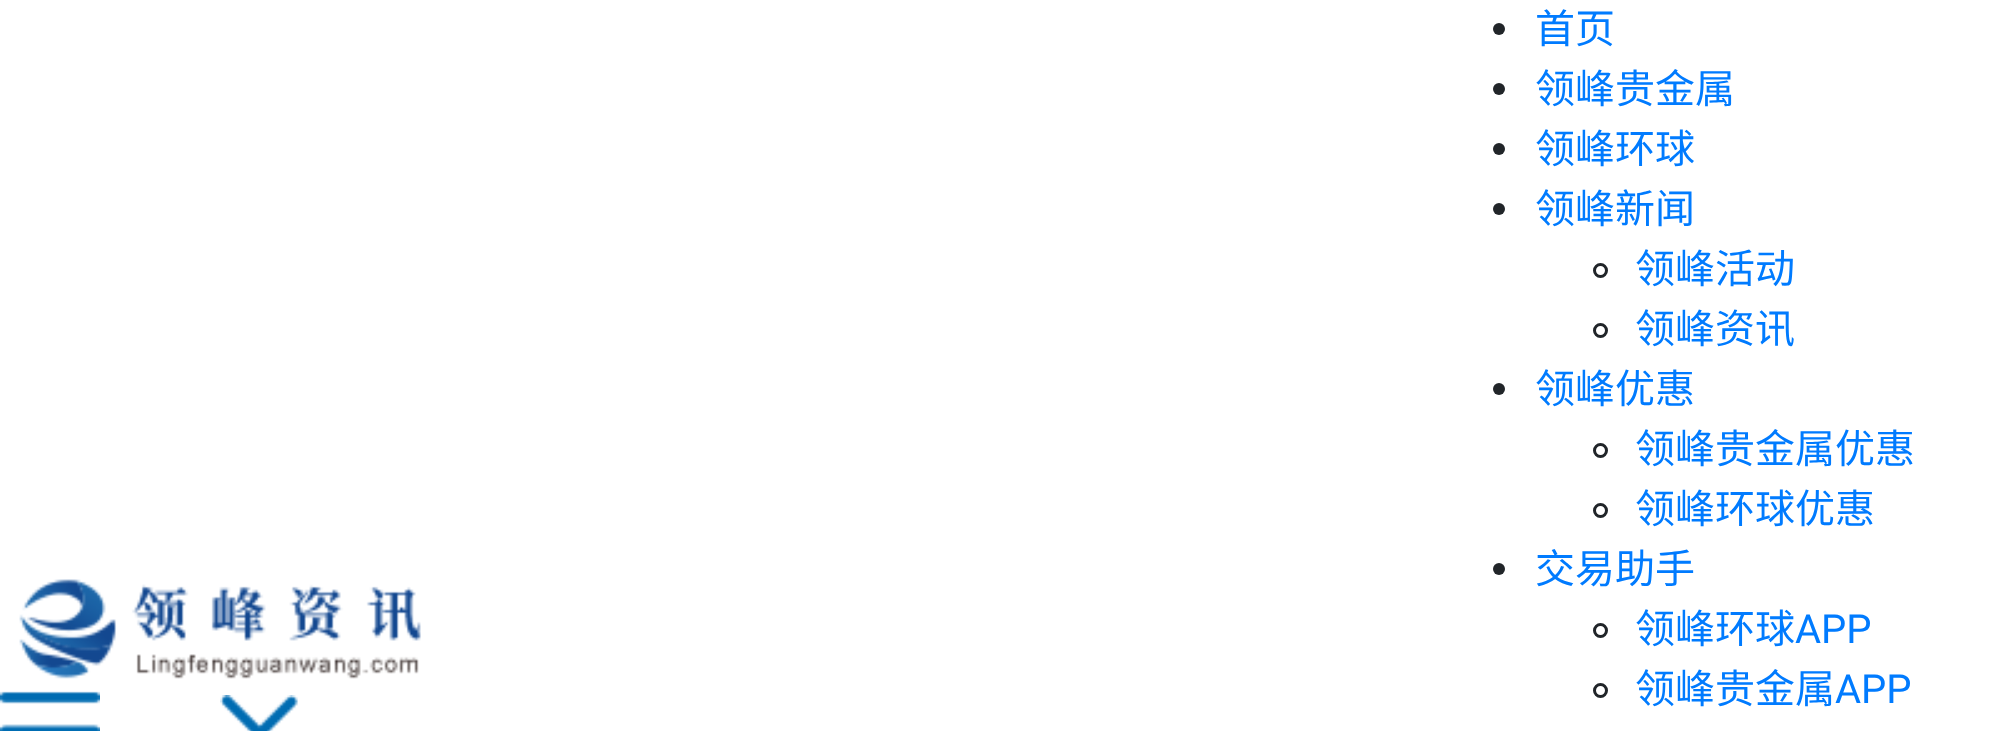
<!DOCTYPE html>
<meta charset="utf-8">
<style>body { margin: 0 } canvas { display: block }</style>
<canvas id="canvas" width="1994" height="731"></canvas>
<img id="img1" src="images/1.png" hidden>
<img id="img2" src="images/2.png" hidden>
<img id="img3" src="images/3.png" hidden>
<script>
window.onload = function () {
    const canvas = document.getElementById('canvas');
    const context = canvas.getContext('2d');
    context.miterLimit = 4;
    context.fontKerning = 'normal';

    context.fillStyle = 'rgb(255, 255, 255)';
    context.fillRect(0, 0, 1994, 731);
    context.drawImage(document.getElementById('img1'), 19, 579, 402, 100);
    context.drawImage(document.getElementById('img2'), 0, 691, 100, 40);
    context.drawImage(document.getElementById('img3'), 220, 695, 78, 36);
    context.fillStyle = 'rgb(33, 37, 41)';
    context.beginPath();
    context.arc(1499, 29, 6, 0, 2 * Math.PI);
    context.fill();
    context.beginPath();
    context.arc(1499, 89, 6, 0, 2 * Math.PI);
    context.fill();
    context.beginPath();
    context.arc(1499, 149, 6, 0, 2 * Math.PI);
    context.fill();
    context.beginPath();
    context.arc(1499, 209, 6, 0, 2 * Math.PI);
    context.fill();
    context.beginPath();
    context.arc(1600.5, 270.5, 6, 0, 2 * Math.PI);
    context.strokeStyle = 'rgb(33, 37, 41)';
    context.lineWidth = 3;
    context.stroke();
    context.beginPath();
    context.arc(1600.5, 330.5, 6, 0, 2 * Math.PI);
    context.stroke();
    context.beginPath();
    context.arc(1499, 389, 6, 0, 2 * Math.PI);
    context.fill();
    context.beginPath();
    context.arc(1600.5, 450.5, 6, 0, 2 * Math.PI);
    context.stroke();
    context.beginPath();
    context.arc(1600.5, 510.5, 6, 0, 2 * Math.PI);
    context.stroke();
    context.beginPath();
    context.arc(1499, 569, 6, 0, 2 * Math.PI);
    context.fill();
    context.beginPath();
    context.arc(1600.5, 630.5, 6, 0, 2 * Math.PI);
    context.stroke();
    context.beginPath();
    context.arc(1600.5, 690.5, 6, 0, 2 * Math.PI);
    context.stroke();
    context.font = '40px Noto Sans CJK SC';
    context.fillStyle = 'rgb(0, 123, 255)';
    context.fillText('首页', 1535, 43);
    context.fillText('领峰贵金属', 1535, 103);
    context.fillText('领峰环球', 1535, 163);
    context.fillText('领峰新闻', 1535, 223);
    context.fillText('领峰活动', 1635, 283);
    context.fillText('领峰资讯', 1635, 343);
    context.fillText('领峰优惠', 1535, 403);
    context.fillText('领峰贵金属优惠', 1635, 463);
    context.fillText('领峰环球优惠', 1635, 523);
    context.fillText('交易助手', 1535, 583);
    context.fillText('领峰环球', 1635, 643);
    context.font = '40px Roboto';
    context.fillText('APP', 1795, 643);
    context.font = '40px Noto Sans CJK SC';
    context.fillText('领峰贵金属', 1635, 703);
    context.font = '40px Roboto';
    context.fillText('APP', 1835, 703);
};
</script>
